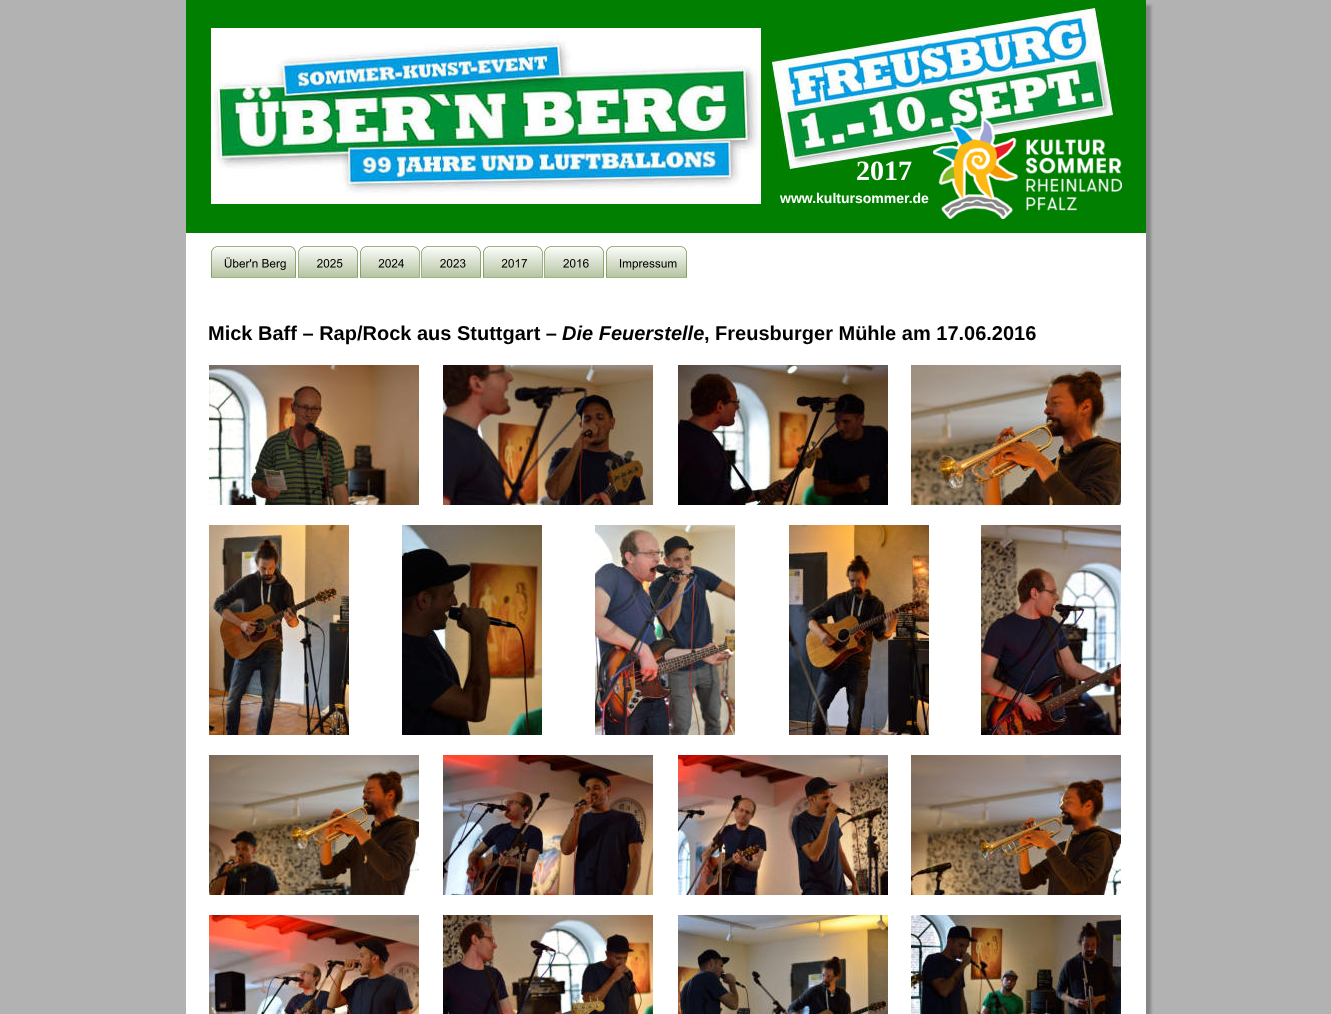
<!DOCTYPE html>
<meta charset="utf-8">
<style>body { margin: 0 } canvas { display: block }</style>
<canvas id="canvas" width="1331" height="1014"></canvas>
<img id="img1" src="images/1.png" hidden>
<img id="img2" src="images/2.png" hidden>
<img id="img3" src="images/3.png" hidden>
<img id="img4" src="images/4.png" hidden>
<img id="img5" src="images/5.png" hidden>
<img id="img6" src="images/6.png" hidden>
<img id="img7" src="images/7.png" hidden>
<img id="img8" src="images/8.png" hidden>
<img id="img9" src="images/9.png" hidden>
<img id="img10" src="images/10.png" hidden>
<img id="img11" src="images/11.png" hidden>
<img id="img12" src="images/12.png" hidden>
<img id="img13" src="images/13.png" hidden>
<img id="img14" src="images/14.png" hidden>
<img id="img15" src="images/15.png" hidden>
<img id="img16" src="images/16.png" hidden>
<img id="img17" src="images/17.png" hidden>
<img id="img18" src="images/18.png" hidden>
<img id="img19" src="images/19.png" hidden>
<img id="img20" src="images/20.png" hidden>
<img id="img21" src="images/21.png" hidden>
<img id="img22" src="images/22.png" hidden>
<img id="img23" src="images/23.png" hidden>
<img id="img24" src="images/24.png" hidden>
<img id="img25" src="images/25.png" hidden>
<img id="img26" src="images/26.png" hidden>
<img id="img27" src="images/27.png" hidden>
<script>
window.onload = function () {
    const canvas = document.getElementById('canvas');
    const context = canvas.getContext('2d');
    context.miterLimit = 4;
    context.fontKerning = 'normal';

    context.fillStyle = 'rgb(178, 178, 178)';
    context.fillRect(0, 0, 1331, 1014);
    context.fillStyle = 'rgba(0, 0, 0, 0.25)';
    context.filter = 'blur(1.5px)';
    context.beginPath();
    context.rect(191, 5, 960, 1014);
    context.fill();
    context.filter = 'none';
    context.fillStyle = 'rgb(255, 255, 255)';
    context.fillRect(186, 233, 960, 781);
    context.fillStyle = 'rgb(0, 127, 1)';
    context.fillRect(186, 0, 960, 233);
    context.drawImage(document.getElementById('img1'), 211, 28, 550, 176);
    context.drawImage(document.getElementById('img2'), 772, 8, 341, 161);
    context.drawImage(document.getElementById('img3'), 933, 118, 189, 101);
    context.drawImage(document.getElementById('img4'), 209, 365, 210, 140);
    context.drawImage(document.getElementById('img5'), 443, 365, 210, 140);
    context.drawImage(document.getElementById('img6'), 678, 365, 210, 140);
    context.drawImage(document.getElementById('img7'), 911, 365, 210, 140);
    context.drawImage(document.getElementById('img8'), 209, 525, 140, 210);
    context.drawImage(document.getElementById('img9'), 402, 525, 140, 210);
    context.drawImage(document.getElementById('img10'), 595, 525, 140, 210);
    context.drawImage(document.getElementById('img11'), 789, 525, 140, 210);
    context.drawImage(document.getElementById('img12'), 981, 525, 140, 210);
    context.drawImage(document.getElementById('img13'), 209, 755, 210, 140);
    context.drawImage(document.getElementById('img14'), 443, 755, 210, 140);
    context.drawImage(document.getElementById('img15'), 678, 755, 210, 140);
    context.drawImage(document.getElementById('img16'), 911, 755, 210, 140);
    context.drawImage(document.getElementById('img17'), 209, 915, 210, 99);
    context.drawImage(document.getElementById('img18'), 443, 915, 210, 99);
    context.drawImage(document.getElementById('img19'), 678, 915, 210, 99);
    context.drawImage(document.getElementById('img20'), 911, 915, 210, 99);
    context.drawImage(document.getElementById('img21'), 211, 246, 85, 32);
    context.drawImage(document.getElementById('img22'), 298, 246, 60, 32);
    context.drawImage(document.getElementById('img23'), 360, 246, 60, 32);
    context.drawImage(document.getElementById('img24'), 421, 246, 60, 32);
    context.drawImage(document.getElementById('img25'), 483, 246, 60, 32);
    context.drawImage(document.getElementById('img26'), 544, 246, 60, 32);
    context.drawImage(document.getElementById('img27'), 606, 246, 81, 32);
    context.font = 'bold 28px Liberation Serif';
    context.fillStyle = 'rgb(255, 255, 255)';
    context.fillText('2017', 856, 180);
    context.font = 'bold 14px Liberation Sans';
    context.fillText('www.kultursommer.de', 780, 203);
    context.font = 'bold 20px Liberation Sans';
    context.fillStyle = 'rgb(0, 0, 0)';
    context.fillText('Mick Baff – Rap/Rock aus Stuttgart –', 208, 340);
    context.font = 'italic bold 20px Liberation Sans';
    context.fillText('Die Feuerstelle', 562, 340);
    context.font = 'bold 20px Liberation Sans';
    context.fillText(', Freusburger Mühle am 17.06.2016', 704, 340);
};
</script>
